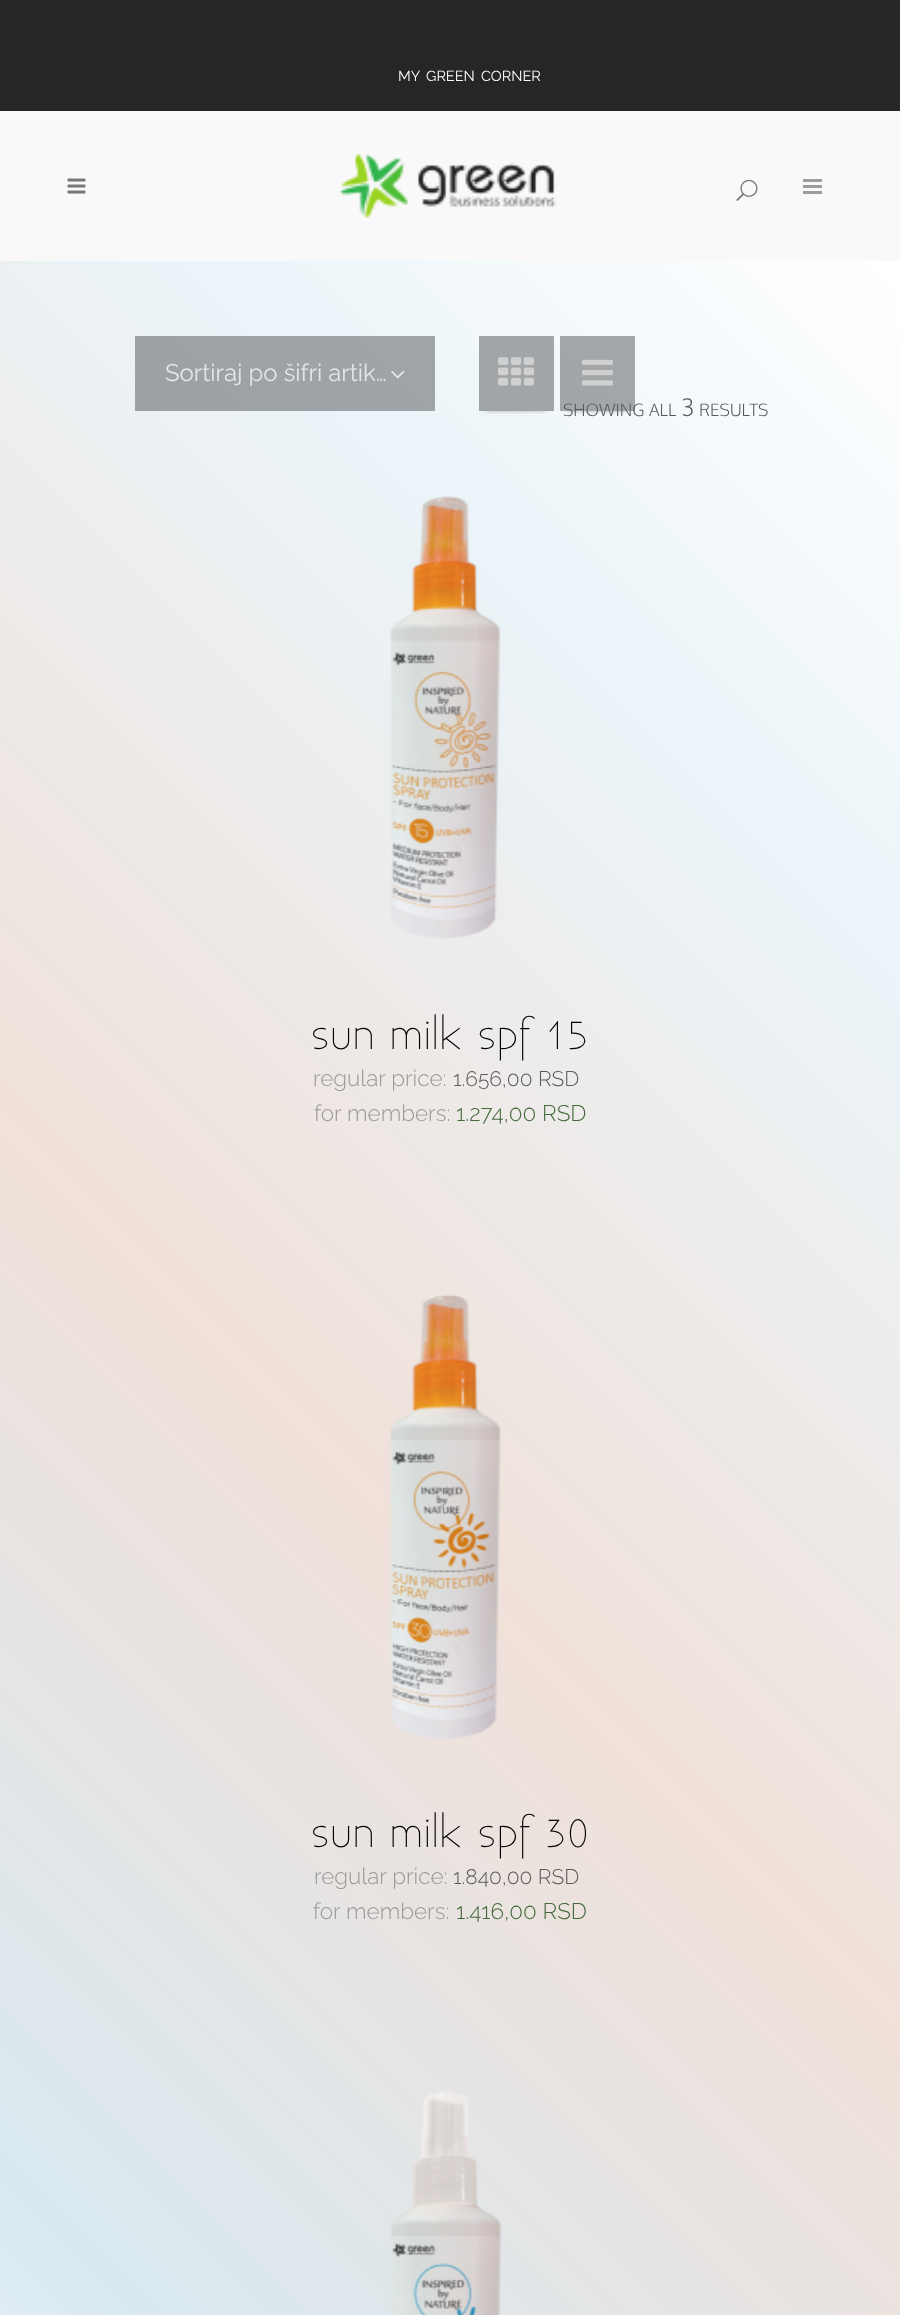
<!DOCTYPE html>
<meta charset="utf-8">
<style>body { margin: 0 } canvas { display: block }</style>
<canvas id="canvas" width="900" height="2315"></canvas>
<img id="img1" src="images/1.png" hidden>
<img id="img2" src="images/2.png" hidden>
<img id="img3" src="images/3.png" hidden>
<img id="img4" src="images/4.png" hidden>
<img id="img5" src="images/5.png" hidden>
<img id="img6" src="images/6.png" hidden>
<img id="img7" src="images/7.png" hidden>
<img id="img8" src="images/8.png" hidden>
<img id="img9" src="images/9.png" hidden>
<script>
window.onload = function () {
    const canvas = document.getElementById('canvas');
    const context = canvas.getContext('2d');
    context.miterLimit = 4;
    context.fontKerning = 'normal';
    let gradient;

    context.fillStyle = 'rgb(249, 249, 249)';
    context.fillRect(0, 0, 900, 2315);
    context.fillStyle = 'rgb(38, 38, 38)';
    context.fillRect(0, 0, 900, 111);
    context.drawImage(document.getElementById('img1'), 67, 178, 19, 16);
    context.drawImage(document.getElementById('img2'), 339, 154, 218, 65);
    context.drawImage(document.getElementById('img3'), 736, 179, 22, 22);
    context.fillStyle = 'rgb(157, 157, 157)';
    context.fillRect(803, 185, 19, 3);
    context.fillRect(803, 179, 19, 3);
    context.fillRect(803, 191, 19, 3);
    gradient = context.createLinearGradient(-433, 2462, 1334, 695);
    gradient.addColorStop(0, 'rgb(255, 255, 255)');
    gradient.addColorStop(0.2, 'rgb(217, 233, 241)');
    gradient.addColorStop(0.5, 'rgb(240, 225, 217)');
    gradient.addColorStop(0.8, 'rgb(235, 244, 249)');
    gradient.addColorStop(1, 'rgb(255, 255, 255)');
    context.fillStyle = gradient;
    context.fillRect(0, 261, 900, 2054);
    gradient = context.createLinearGradient(-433, 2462, 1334, 695);
    gradient.addColorStop(0, 'rgb(171, 171, 171)');
    gradient.addColorStop(0.2, 'rgb(145, 156, 161)');
    gradient.addColorStop(0.5, 'rgb(161, 151, 145)');
    gradient.addColorStop(0.8, 'rgb(157, 163, 167)');
    gradient.addColorStop(1, 'rgb(171, 171, 171)');
    context.fillStyle = gradient;
    context.fillRect(135, 336, 300, 75);
    context.fillRect(560, 336, 75, 75);
    context.fillRect(479, 336, 75, 75);
    context.drawImage(document.getElementById('img4'), 391, 370, 14, 9);
    context.save();
    context.beginPath();
    context.rect(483, 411, 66, 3);
    context.clip();
    context.fillStyle = 'rgba(0, 0, 0, 0.9)';
    context.filter = 'blur(3px)';
    context.beginPath();
    context.rect(486, 348, 60, 60);
    context.fill();
    context.filter = 'none';
    context.restore();
    context.drawImage(document.getElementById('img5'), 498, 357, 36, 29);
    context.save();
    context.beginPath();
    context.rect(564, 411, 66, 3);
    context.clip();
    context.fillStyle = 'rgba(0, 0, 0, 0.9)';
    context.filter = 'blur(3px)';
    context.beginPath();
    context.rect(567, 348, 60, 60);
    context.fill();
    context.filter = 'none';
    context.restore();
    context.drawImage(document.getElementById('img6'), 582, 359, 31, 27);
    context.drawImage(document.getElementById('img7'), 390, 496, 111, 443);
    context.drawImage(document.getElementById('img8'), 390, 1294, 111, 445);
    context.drawImage(document.getElementById('img9'), 390, 2091, 112, 224);
    context.font = '14.5px Raleway';
    context.fillStyle = 'rgb(255, 255, 255)';
    context.fillText('MY', 398, 81);
    context.fillText('GREEN', 426, 81);
    context.fillText('CORNER', 481, 81);
    context.font = '24px Raleway';
    context.fillStyle = 'rgb(229, 229, 229)';
    context.fillText('Sortiraj po šifri artik…', 165, 381);
    context.font = '300 17px Oxygen';
    context.fillStyle = 'rgb(89, 89, 89)';
    context.fillText('SHOWING', 563, 416);
    context.fillText('ALL', 649, 416);
    context.font = '300 24px Oxygen';
    context.fillText('3', 681, 416);
    context.font = '300 17px Oxygen';
    context.fillText('RESULTS', 699, 416);
    context.letterSpacing = '1.5px';
    context.font = '300 39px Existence';
    context.fillStyle = 'rgb(0, 0, 0)';
    context.fillText('sun milk spf 15', 311, 1049);
    context.letterSpacing = '0px';
    context.font = '300 22.5px Raleway';
    context.fillStyle = 'rgb(153, 153, 153)';
    context.fillText('regular price:', 313, 1086);
    context.font = '300 21px Raleway';
    context.fillStyle = 'rgb(89, 89, 89)';
    context.fillText('1.656,00 RSD', 453, 1086);
    context.font = '300 22.5px Raleway';
    context.fillStyle = 'rgb(153, 153, 153)';
    context.fillText('for members:', 314, 1121);
    context.fillStyle = 'rgb(66, 103, 57)';
    context.fillText('1.274,00 RSD', 456, 1121);
    context.letterSpacing = '1.5px';
    context.font = '300 39px Existence';
    context.fillStyle = 'rgb(0, 0, 0)';
    context.fillText('sun milk spf 30', 311, 1847);
    context.letterSpacing = '0px';
    context.font = '300 22.5px Raleway';
    context.fillStyle = 'rgb(153, 153, 153)';
    context.fillText('regular price:', 314, 1884);
    context.font = '300 21px Raleway';
    context.fillStyle = 'rgb(89, 89, 89)';
    context.fillText('1.840,00 RSD', 453, 1884);
    context.font = '300 22.5px Raleway';
    context.fillStyle = 'rgb(153, 153, 153)';
    context.fillText('for members:', 313, 1919);
    context.fillStyle = 'rgb(66, 103, 57)';
    context.fillText('1.416,00 RSD', 456, 1919);
};
</script>
